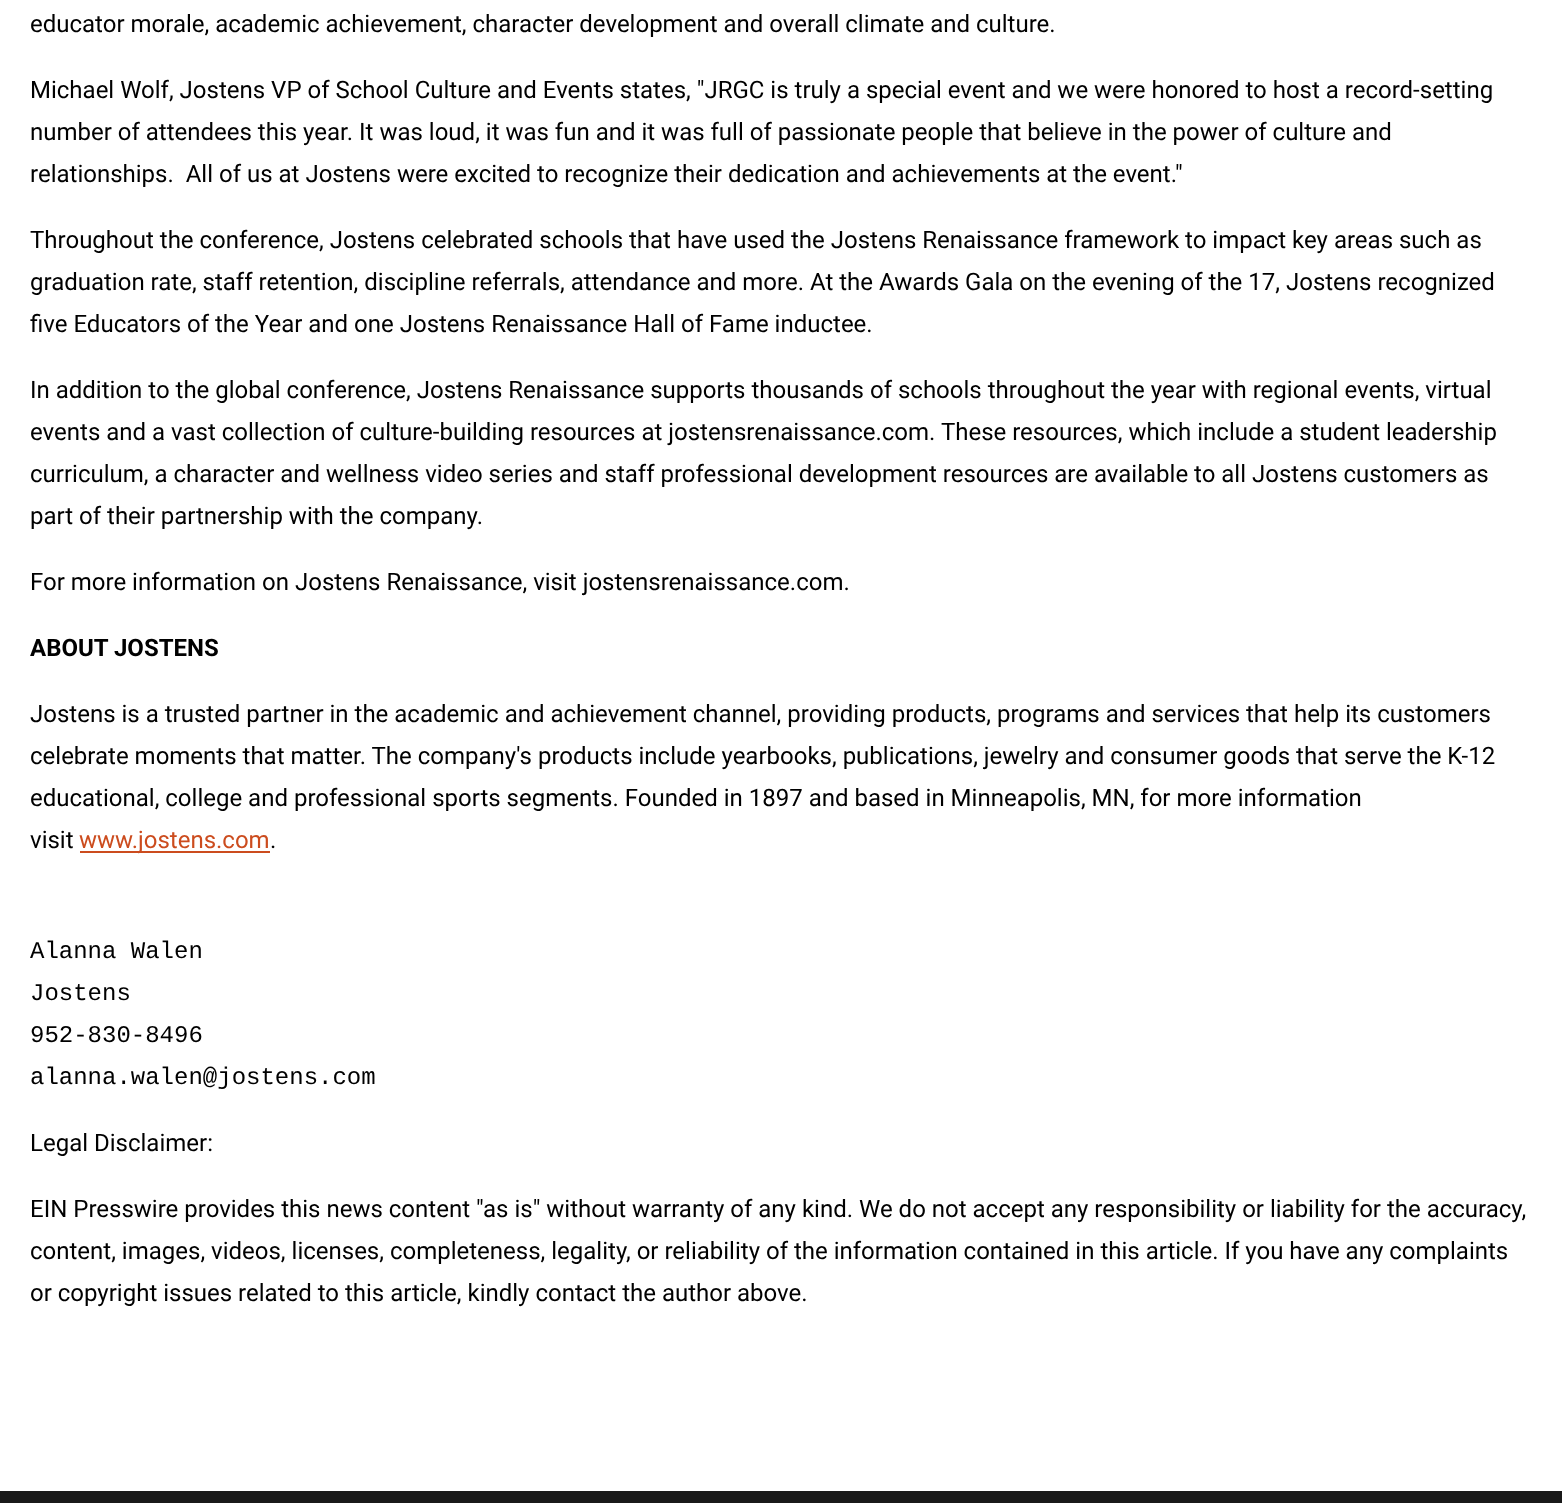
<!DOCTYPE html>
<meta charset="utf-8">
<style>body { margin: 0 } canvas { display: block }</style>
<canvas id="canvas" width="1562" height="1510"></canvas>
<script>
window.onload = function () {
    const canvas = document.getElementById('canvas');
    const context = canvas.getContext('2d');
    context.miterLimit = 4;
    context.fontKerning = 'normal';

    context.fillStyle = 'rgb(255, 255, 255)';
    context.fillRect(0, 0, 1562, 1510);
    context.fillStyle = 'rgb(204, 76, 30)';
    context.fillRect(80, 851, 190, 2);
    context.fillStyle = 'rgb(25, 25, 25)';
    context.fillRect(0, 1491, 1562, 12);
    context.font = '24px Roboto';
    context.fillStyle = 'rgb(0, 0, 0)';
    context.fillText('educator morale, academic achievement, character development and overall climate and culture.', 30, 32);
    context.fillText('Michael Wolf, Jostens VP of School Culture and Events states, "JRGC is truly a special event and we were honored to host a record-setting', 30, 98);
    context.fillText('number of attendees this year. It was loud, it was fun and it was full of passionate people that believe in the power of culture and', 30, 140);
    context.fillText('relationships.  All of us at Jostens were excited to recognize their dedication and achievements at the event."', 30, 182);
    context.fillText('Throughout the conference, Jostens celebrated schools that have used the Jostens Renaissance framework to impact key areas such as', 30, 248);
    context.fillText('graduation rate, staff retention, discipline referrals, attendance and more. At the Awards Gala on the evening of the 17, Jostens recognized', 30, 290);
    context.fillText('five Educators of the Year and one Jostens Renaissance Hall of Fame inductee.', 30, 332);
    context.fillText('In addition to the global conference, Jostens Renaissance supports thousands of schools throughout the year with regional events, virtual', 30, 398);
    context.fillText('events and a vast collection of culture-building resources at jostensrenaissance.com. These resources, which include a student leadership', 30, 440);
    context.fillText('curriculum, a character and wellness video series and staff professional development resources are available to all Jostens customers as', 30, 482);
    context.fillText('part of their partnership with the company.', 30, 524);
    context.fillText('For more information on Jostens Renaissance, visit jostensrenaissance.com.', 30, 590);
    context.font = 'bold 24px Roboto';
    context.fillText('ABOUT JOSTENS', 30, 656);
    context.font = '24px Roboto';
    context.fillText('Jostens is a trusted partner in the academic and achievement channel, providing products, programs and services that help its customers', 30, 722);
    context.fillText('celebrate moments that matter. The company\'s products include yearbooks, publications, jewelry and consumer goods that serve the K-12', 30, 764);
    context.fillText('educational, college and professional sports segments. Founded in 1897 and based in Minneapolis, MN, for more information', 30, 806);
    context.fillText('visit', 30, 848);
    context.fillStyle = 'rgb(204, 76, 30)';
    context.fillText('www.jostens.com', 79, 848);
    context.fillStyle = 'rgb(0, 0, 0)';
    context.fillText('.', 270, 848);
    context.font = '24px Liberation Mono';
    context.fillText('Alanna Walen', 30, 958);
    context.fillText('Jostens', 30, 1000);
    context.fillText('952-830-8496', 30, 1042);
    context.fillText('alanna.walen@jostens.com', 30, 1084);
    context.font = '24px Roboto';
    context.fillText('Legal Disclaimer:', 30, 1151);
    context.fillText('EIN Presswire provides this news content "as is" without warranty of any kind. We do not accept any responsibility or liability for the accuracy,', 30, 1217);
    context.fillText('content, images, videos, licenses, completeness, legality, or reliability of the information contained in this article. If you have any complaints', 30, 1259);
    context.fillText('or copyright issues related to this article, kindly contact the author above.', 30, 1301);
};
</script>
